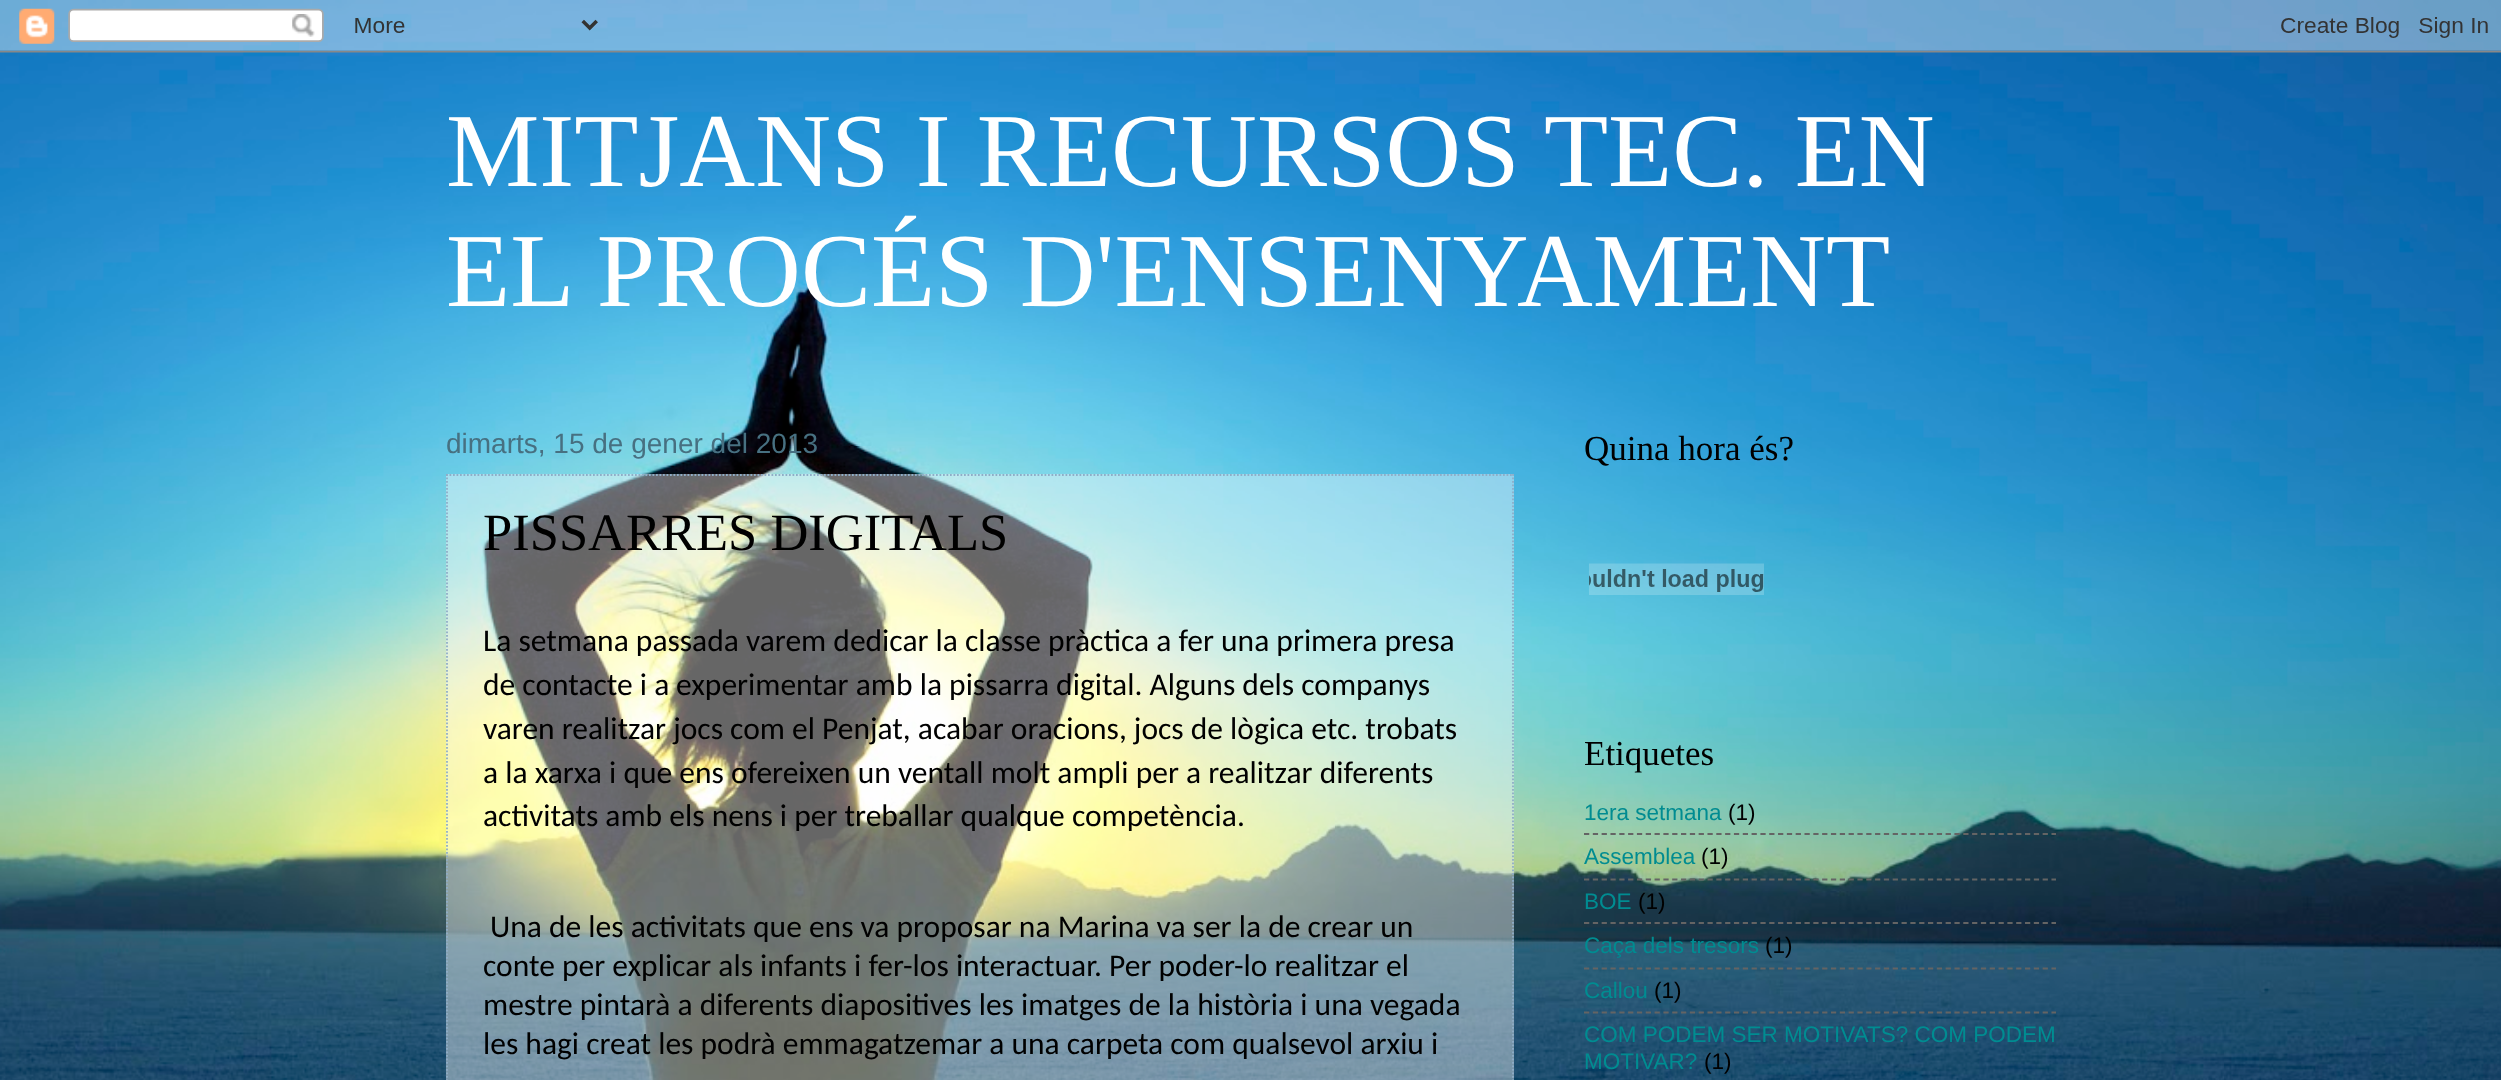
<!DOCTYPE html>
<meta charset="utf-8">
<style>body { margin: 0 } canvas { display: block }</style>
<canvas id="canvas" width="2501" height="1080"></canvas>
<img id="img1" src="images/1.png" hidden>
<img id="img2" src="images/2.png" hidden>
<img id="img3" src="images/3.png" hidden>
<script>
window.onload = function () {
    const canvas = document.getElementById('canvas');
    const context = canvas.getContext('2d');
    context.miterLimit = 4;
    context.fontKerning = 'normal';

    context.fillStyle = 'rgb(255, 255, 255)';
    context.fillRect(0, 0, 2501, 1080);
    context.drawImage(document.getElementById('img1'), 0, 0, 2501, 1080);
    context.drawImage(document.getElementById('img2'), 0, 0, 2501, 53);
    context.fillStyle = 'rgba(255, 255, 255, 0.4)';
    context.fillRect(446, 474, 1068, 606);
    context.beginPath();
    context.moveTo(446, 475);
    context.lineTo(1514, 475);
    context.strokeStyle = 'rgb(143, 173, 199)';
    context.lineWidth = 1.8;
    context.setLineDash([1.75, 1.75]);
    context.stroke();
    context.beginPath();
    context.moveTo(1513, 474);
    context.lineTo(1513, 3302);
    context.stroke();
    context.beginPath();
    context.moveTo(447, 474);
    context.lineTo(447, 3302);
    context.stroke();
    context.drawImage(document.getElementById('img3'), 1589, 563, 175, 32);
    context.beginPath();
    context.moveTo(1584, 834);
    context.lineTo(2056, 834);
    context.strokeStyle = 'rgb(100, 100, 100)';
    context.setLineDash([5.25, 3.57]);
    context.stroke();
    context.beginPath();
    context.moveTo(1584, 879.5);
    context.lineTo(2056, 879.5);
    context.stroke();
    context.beginPath();
    context.moveTo(1584, 923);
    context.lineTo(2056, 923);
    context.stroke();
    context.beginPath();
    context.moveTo(1584, 968.5);
    context.lineTo(2056, 968.5);
    context.stroke();
    context.beginPath();
    context.moveTo(1584, 1012.5);
    context.lineTo(2056, 1012.5);
    context.stroke();
    context.font = '105px Liberation Serif';
    context.fillStyle = 'rgb(255, 255, 255)';
    context.fillText('MITJANS I RECURSOS TEC. EN', 446, 186);
    context.fillText('EL PROCÉS D\'ENSENYAMENT', 446, 306);
    context.font = '28px Liberation Sans';
    context.fillStyle = 'rgb(71, 112, 129)';
    context.fillText('dimarts, 15 de gener del 2013', 446, 453);
    context.font = '52.5px Liberation Serif';
    context.fillStyle = 'rgb(0, 0, 0)';
    context.fillText('PISSARRES DIGITALS', 483, 550);
    context.font = '31.5px Carlito';
    context.fillText('La setmana passada varem dedicar la classe pràctica a fer una primera presa', 483, 651);
    context.fillText('de contacte i a', 483, 695);
    context.fillText('experimentar amb la pissarra digital. Alguns dels companys', 676, 695);
    context.fillText('varen realitzar jocs com el Penjat, acabar oracions, jocs de lògica etc. trobats', 483, 739);
    context.fillText('a la xarxa i que ens ofereixen un ventall molt ampli per a realitzar diferents', 483, 783);
    context.fillText('activitats amb els nens i per treballar qualque competència.', 483, 826);
    context.fillText('Una de les activitats que ens va proposar na Marina va ser la de crear un', 490, 937);
    context.fillText('conte per explicar als infants i fer-los interactuar. Per poder-lo realitzar el', 483, 976);
    context.fillText('mestre pintarà a diferents diapositives les imatges de la història i una vegada', 483, 1015);
    context.fillText('les hagi creat les podrà emmagatzemar a una carpeta com qualsevol arxiu i', 483, 1054);
    context.font = '35px Liberation Serif';
    context.fillText('Quina hora és?', 1584, 460);
    context.fillText('Etiquetes', 1584, 765);
    context.font = '22.5px Liberation Sans';
    context.fillStyle = 'rgb(0, 140, 145)';
    context.fillText('1era setmana', 1584, 820);
    context.fillStyle = 'rgb(0, 0, 0)';
    context.fillText('(1)', 1728, 820);
    context.fillStyle = 'rgb(0, 140, 145)';
    context.fillText('Assemblea', 1584, 864);
    context.fillStyle = 'rgb(0, 0, 0)';
    context.fillText('(1)', 1701, 864);
    context.fillStyle = 'rgb(0, 140, 145)';
    context.fillText('BOE', 1584, 909);
    context.fillStyle = 'rgb(0, 0, 0)';
    context.fillText('(1)', 1638, 909);
    context.fillStyle = 'rgb(0, 140, 145)';
    context.fillText('Caça dels tresors', 1584, 953);
    context.fillStyle = 'rgb(0, 0, 0)';
    context.fillText('(1)', 1765, 953);
    context.fillStyle = 'rgb(0, 140, 145)';
    context.fillText('Callou', 1584, 998);
    context.fillStyle = 'rgb(0, 0, 0)';
    context.fillText('(1)', 1654, 998);
    context.fillStyle = 'rgb(0, 140, 145)';
    context.fillText('COM PODEM SER MOTIVATS? COM PODEM', 1584, 1042);
    context.fillText('MOTIVAR?', 1584, 1069);
    context.fillStyle = 'rgb(0, 0, 0)';
    context.fillText('(1)', 1704, 1069);
};
</script>
